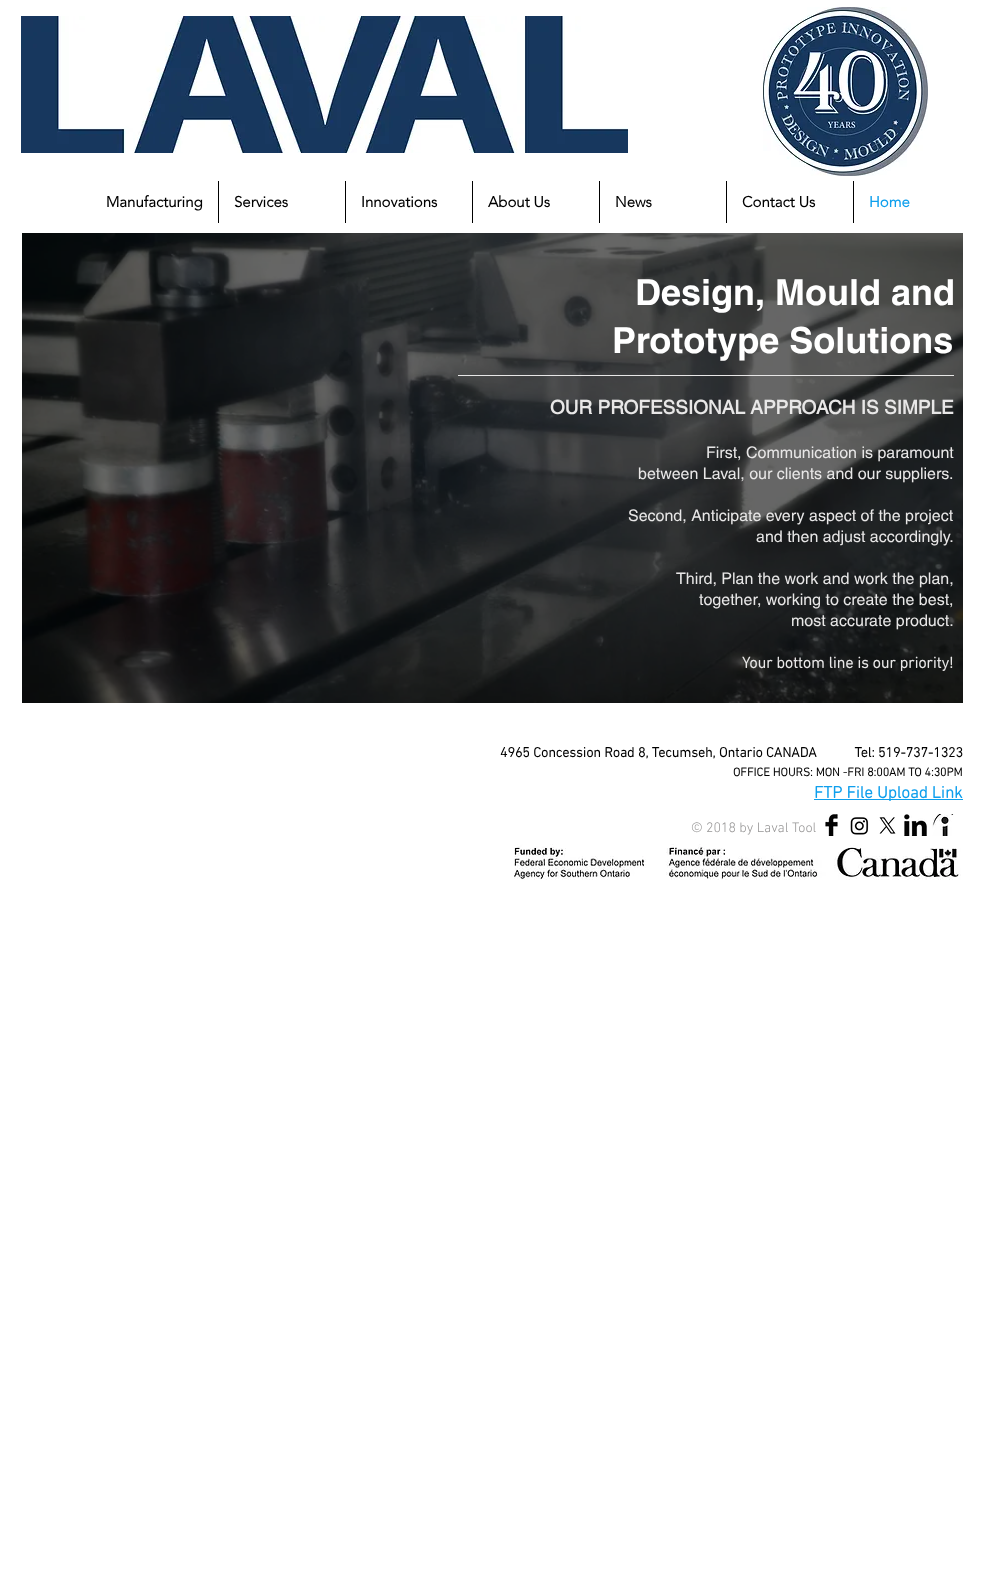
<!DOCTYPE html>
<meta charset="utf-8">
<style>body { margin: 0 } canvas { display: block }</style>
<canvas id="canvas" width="983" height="1576"></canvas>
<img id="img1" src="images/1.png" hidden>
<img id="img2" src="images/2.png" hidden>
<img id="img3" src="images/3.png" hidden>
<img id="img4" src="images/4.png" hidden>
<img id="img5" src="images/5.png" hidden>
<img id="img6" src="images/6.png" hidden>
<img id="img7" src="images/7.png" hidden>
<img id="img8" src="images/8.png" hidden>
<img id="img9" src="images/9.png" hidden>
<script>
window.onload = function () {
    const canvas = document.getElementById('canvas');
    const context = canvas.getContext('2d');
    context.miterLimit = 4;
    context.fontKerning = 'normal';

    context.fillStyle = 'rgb(255, 255, 255)';
    context.fillRect(0, 0, 983, 1576);
    context.drawImage(document.getElementById('img1'), 21, 16, 607, 137);
    context.drawImage(document.getElementById('img2'), 763, 7, 165, 169);
    context.fillStyle = 'rgb(0, 0, 0)';
    context.fillRect(218, 181, 1, 42);
    context.fillRect(345, 181, 1, 42);
    context.fillRect(472, 181, 1, 42);
    context.fillRect(599, 181, 1, 42);
    context.fillRect(726, 181, 1, 42);
    context.fillRect(853, 181, 1, 42);
    context.drawImage(document.getElementById('img3'), 22, 233, 941, 470);
    context.fillStyle = 'rgb(232, 231, 231)';
    context.fillRect(458, 375, 496, 1);
    context.fillStyle = 'rgb(14, 159, 237)';
    context.fillRect(814, 799, 149, 1);
    context.drawImage(document.getElementById('img4'), 825, 814, 13, 22);
    context.drawImage(document.getElementById('img5'), 850, 817, 19, 18);
    context.drawImage(document.getElementById('img6'), 879, 817, 17, 17);
    context.drawImage(document.getElementById('img7'), 904, 814, 23, 22);
    context.drawImage(document.getElementById('img8'), 932, 814, 22, 22);
    context.drawImage(document.getElementById('img9'), 514, 836, 447, 44);
    context.font = 'bold 15px "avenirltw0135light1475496"';
    context.fillStyle = 'rgb(0, 0, 0)';
    context.fillText('Manufacturing', 106, 207);
    context.fillText('Services', 234, 207);
    context.fillText('Innovations', 361, 207);
    context.fillText('About Us', 488, 207);
    context.fillText('News', 615, 207);
    context.fillText('Contact Us', 742, 207);
    context.fillStyle = 'rgb(14, 159, 237)';
    context.fillText('Home', 869, 207);
    context.font = 'bold 36px helvetica';
    context.fillStyle = 'rgb(255, 255, 255)';
    context.fillText('Design, Mould and', 635, 305);
    context.fillText('Prototype Solutions', 612, 353);
    context.font = 'bold 19px "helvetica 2"';
    context.fillStyle = 'rgb(232, 231, 231)';
    context.fillText('OUR PROFESSIONAL APPROACH IS SIMPLE', 550, 414);
    context.font = '16px helvetica';
    context.fillText('First, Communication is paramount', 706, 458);
    context.fillText('between Laval, our clients and our suppliers.', 638, 479);
    context.fillText('Second, Anticipate every aspect of the project', 628, 521);
    context.fillText('and then adjust accordingly.', 756, 542);
    context.fillText('Third, Plan the work and work the plan,', 676, 584);
    context.fillText('together, working to create the best,', 699, 605);
    context.fillText('most accurate product.', 791, 626);
    context.font = 'bold 16px "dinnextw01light"';
    context.fillText('Your bottom line is our priority!', 742, 668);
    context.font = 'bold 14px "dinnextw01light"';
    context.fillStyle = 'rgb(0, 0, 0)';
    context.fillText('4965 Concession Road 8, Tecumseh, Ontario CANADA           Tel: 519-737-1323', 500, 757);
    context.font = 'bold 12px "dinnextw01light"';
    context.fillText('OFFICE HOURS: MON -FRI 8:00AM TO 4:30PM', 733, 776);
    context.font = 'bold 17px "dinnextw01light"';
    context.fillStyle = 'rgb(14, 159, 237)';
    context.fillText('FTP File Upload Link', 814, 798);
    context.font = '300 14px "dinnextw01light"';
    context.fillStyle = 'rgb(151, 150, 150)';
    context.fillText('© 2018 by Laval Tool', 691, 832);
};
</script>
